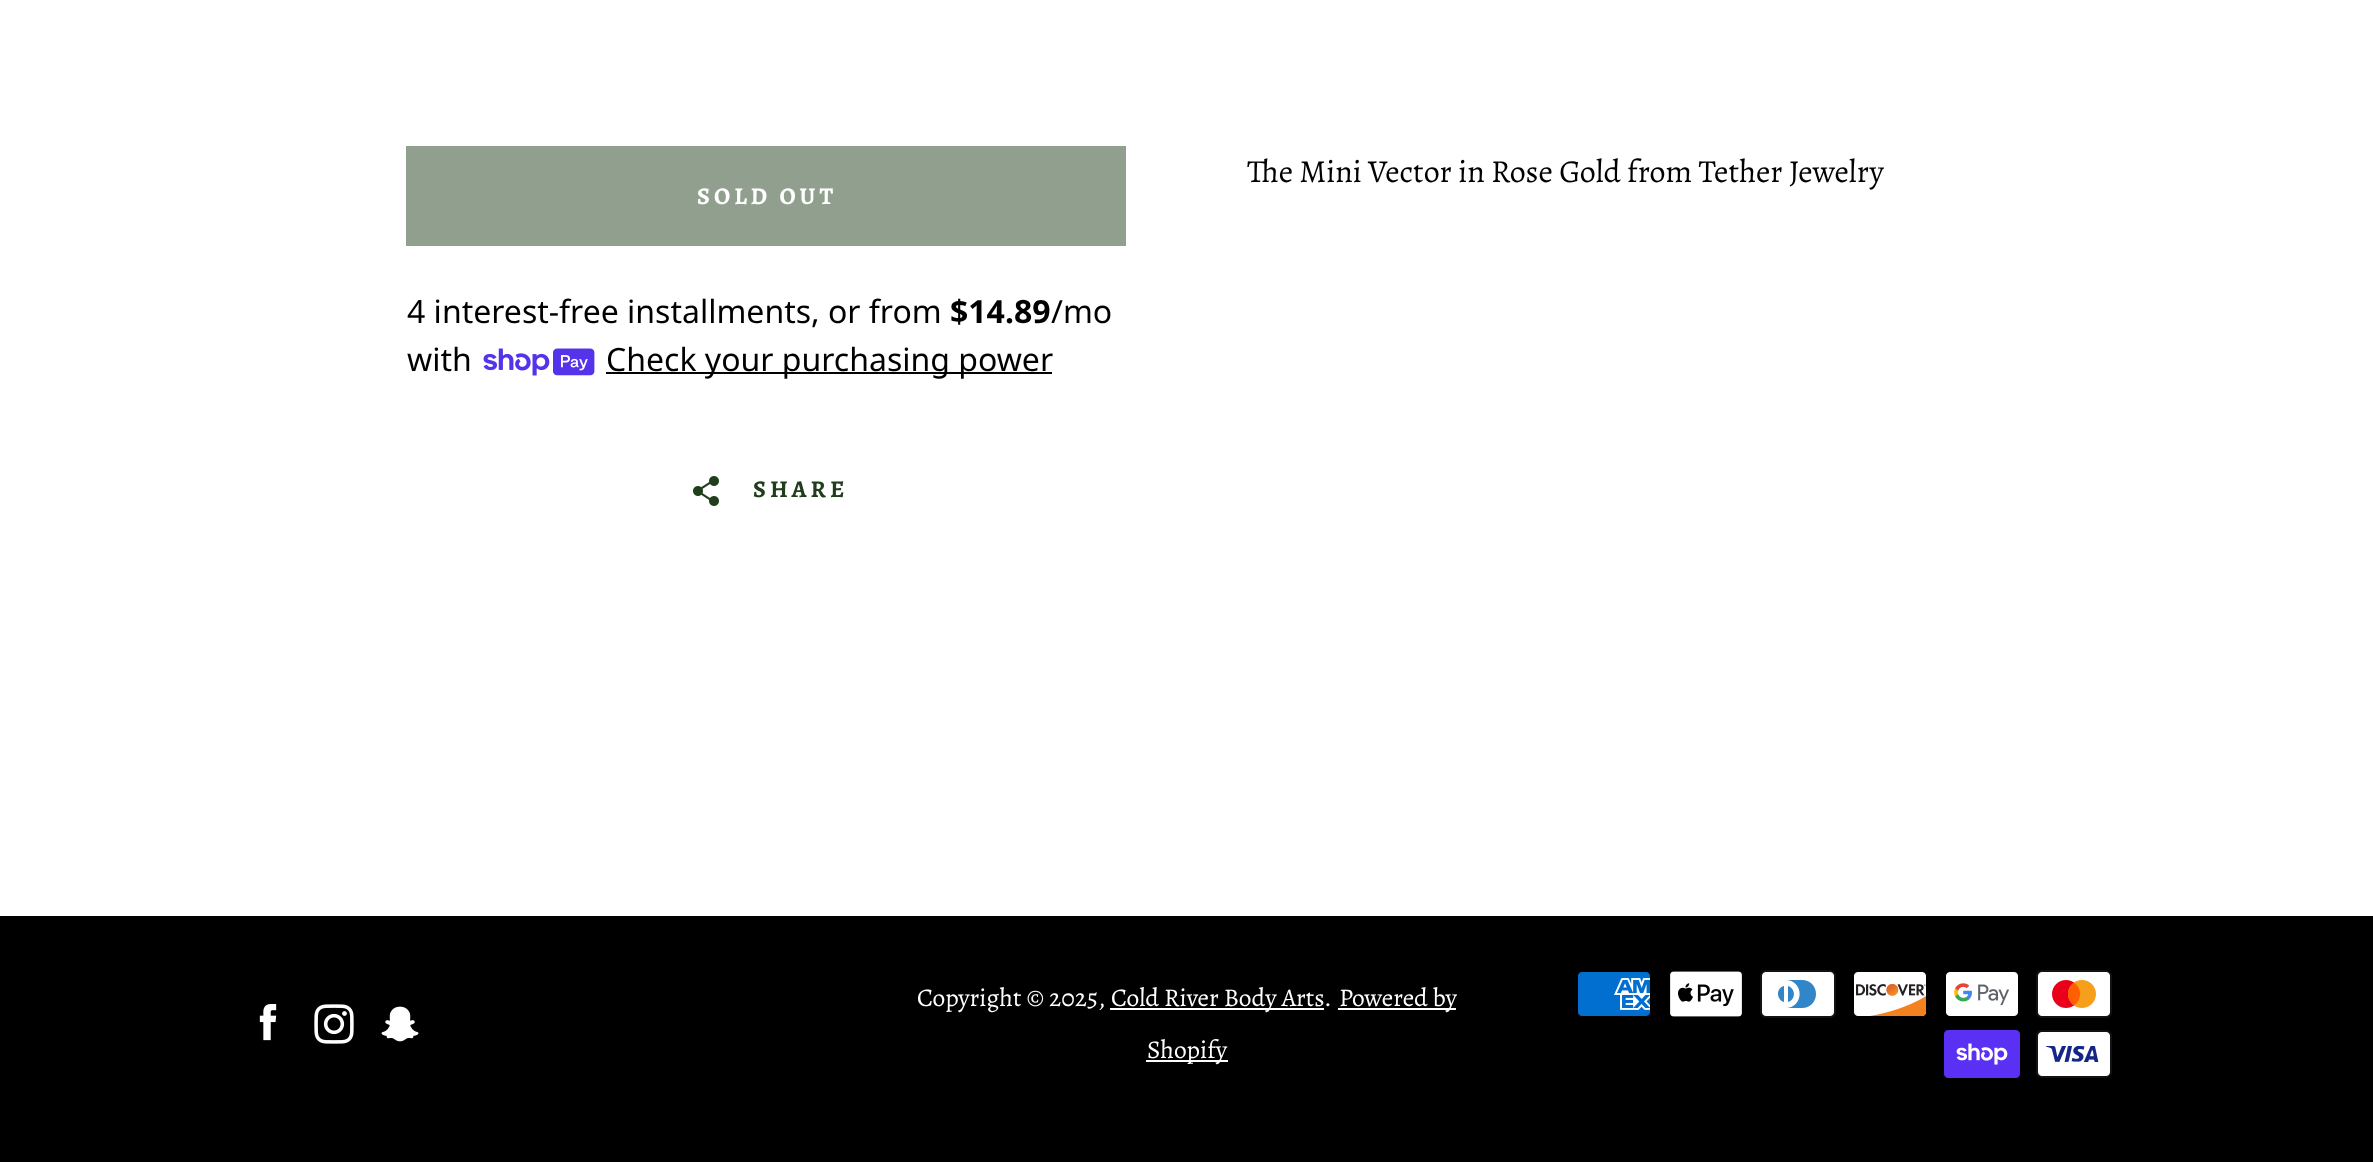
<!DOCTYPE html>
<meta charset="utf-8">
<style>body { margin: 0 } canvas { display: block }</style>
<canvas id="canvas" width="2373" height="1162"></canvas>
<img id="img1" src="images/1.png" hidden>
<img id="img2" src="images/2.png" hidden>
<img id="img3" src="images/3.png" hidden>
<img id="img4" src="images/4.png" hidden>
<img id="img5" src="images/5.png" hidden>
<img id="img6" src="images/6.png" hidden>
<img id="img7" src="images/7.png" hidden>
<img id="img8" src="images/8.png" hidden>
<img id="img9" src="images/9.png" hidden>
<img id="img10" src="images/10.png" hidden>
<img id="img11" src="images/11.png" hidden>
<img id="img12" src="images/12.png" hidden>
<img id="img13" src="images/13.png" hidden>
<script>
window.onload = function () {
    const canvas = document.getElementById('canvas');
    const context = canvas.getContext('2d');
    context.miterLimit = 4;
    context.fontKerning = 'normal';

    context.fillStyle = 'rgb(0, 0, 0)';
    context.fillRect(0, 0, 2373, 1162);
    context.fillStyle = 'rgb(255, 255, 255)';
    context.fillRect(0, 0, 2373, 916);
    context.fillStyle = 'rgb(144, 159, 142)';
    context.fillRect(406, 146, 720, 100);
    context.drawImage(document.getElementById('img1'), 483, 348, 112, 28);
    context.fillStyle = 'rgb(0, 0, 0)';
    context.fillRect(606, 372, 446, 2);
    context.drawImage(document.getElementById('img2'), 693, 476, 26, 30);
    context.drawImage(document.getElementById('img3'), 259, 1004, 18, 37);
    context.drawImage(document.getElementById('img4'), 314, 1004, 40, 40);
    context.drawImage(document.getElementById('img5'), 381, 1006, 38, 36);
    context.fillStyle = 'rgb(255, 255, 255)';
    context.fillRect(1110, 1008, 214, 2);
    context.fillRect(1338, 1008, 118, 2);
    context.fillRect(1146, 1060, 82, 2);
    context.drawImage(document.getElementById('img6'), 1578, 972, 72, 44);
    context.drawImage(document.getElementById('img7'), 1670, 971, 72, 46);
    context.drawImage(document.getElementById('img8'), 1760, 970, 76, 48);
    context.drawImage(document.getElementById('img9'), 1854, 972, 73, 44);
    context.drawImage(document.getElementById('img10'), 1946, 972, 72, 44);
    context.drawImage(document.getElementById('img11'), 2036, 970, 76, 48);
    context.drawImage(document.getElementById('img12'), 1944, 1030, 76, 48);
    context.drawImage(document.getElementById('img13'), 2036, 1030, 76, 48);
    context.font = '32px Alegreya';
    context.fillStyle = 'rgb(0, 0, 0)';
    context.fillText('The Mini Vector in Rose Gold from Tether Jewelry', 1247, 182);
    context.letterSpacing = '4px';
    context.font = 'bold 24px Alegreya';
    context.fillStyle = 'rgb(255, 255, 255)';
    context.fillText('SOLD OUT', 697, 204);
    context.letterSpacing = '0px';
    context.font = '32px Noto Sans';
    context.fillStyle = 'rgb(0, 0, 0)';
    context.fillText('4 interest-free installments, or from', 407, 323);
    context.font = 'bold 32px Noto Sans';
    context.fillText('$14.89', 950, 323);
    context.font = '32px Noto Sans';
    context.fillText('/mo', 1051, 323);
    context.fillText('with', 407, 371);
    context.fillText('Check your purchasing power', 606, 371);
    context.letterSpacing = '4px';
    context.font = 'bold 24px Alegreya';
    context.fillStyle = 'rgb(32, 62, 28)';
    context.fillText('SHARE', 753, 497);
    context.letterSpacing = '0px';
    context.font = '25.5px Alegreya';
    context.fillStyle = 'rgb(255, 255, 255)';
    context.fillText('Copyright © 2025,', 917, 1006);
    context.fillText('Cold River Body Arts', 1111, 1006);
    context.fillText('.', 1324, 1006);
    context.fillText('Powered by', 1339, 1006);
    context.fillText('Shopify', 1147, 1058);
};
</script>
